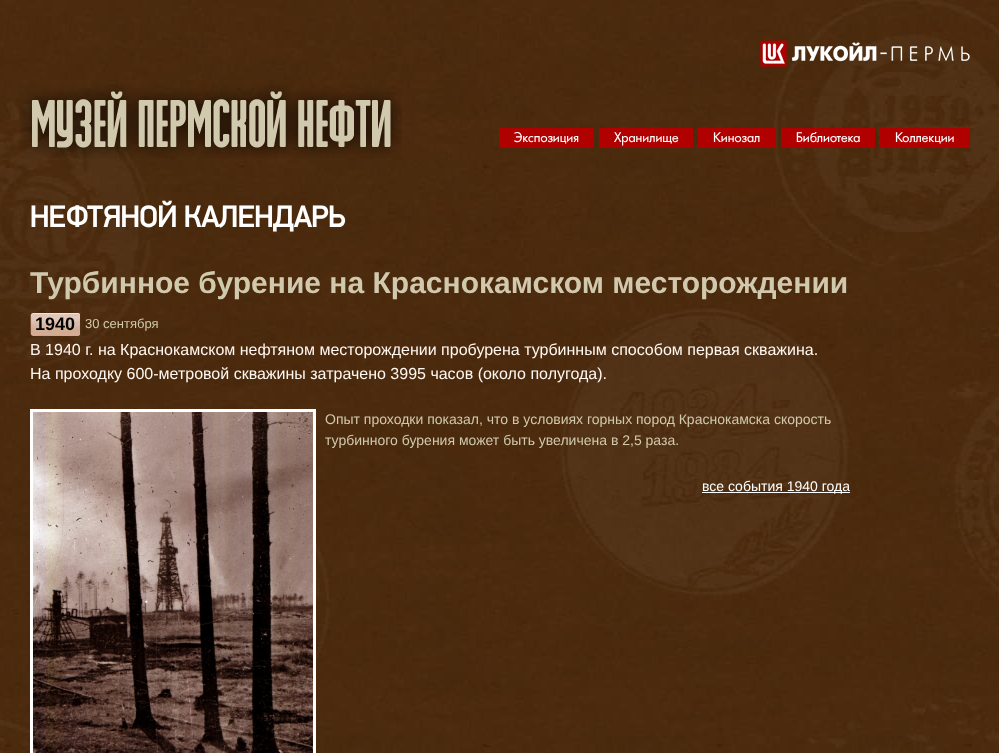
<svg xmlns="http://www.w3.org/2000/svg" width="999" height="753">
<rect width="100%" height="100%" fill="#fff"/>
<image x="0" y="0" width="999" height="753" href="media/1.png"/>
<image x="760" y="40" width="210" height="27" href="media/2.png"/>
<image x="20" y="84" width="382" height="74" href="media/3.png"/>
<rect x="499" y="128" width="95" height="20" fill="#b00000"/>
<text x="514" y="142" style="font-family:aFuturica;font-size:13px;fill:#fff">Экспозиция</text>
<rect x="599" y="128" width="94" height="20" fill="#b00000"/>
<text x="614" y="142" style="font-family:aFuturica;font-size:13px;fill:#fff">Хранилище</text>
<rect x="698" y="128" width="78" height="20" fill="#b00000"/>
<text x="713" y="142" style="font-family:aFuturica;font-size:13px;fill:#fff">Кинозал</text>
<rect x="781" y="128" width="94" height="20" fill="#b00000"/>
<text x="796" y="142" style="font-family:aFuturica;font-size:13px;fill:#fff">Библиотека</text>
<rect x="880" y="128" width="90" height="20" fill="#b00000"/>
<text x="895" y="142" style="font-family:aFuturica;font-size:13px;fill:#fff">Коллекции</text>
<text x="30" y="227" style="font-family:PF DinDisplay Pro;font-size:30px;font-weight:bold;fill:#fff">НЕФТЯНОЙ КАЛЕНДАРЬ</text>
<text x="30" y="293" style="font-family:Liberation Sans;font-size:30px;font-weight:bold;fill:#d1c9ad">Турбинное бурение на Краснокамском месторождении</text>
<image x="30" y="313" width="50" height="23" href="media/4.png"/>
<text x="35" y="330" style="font-family:Liberation Sans;font-size:18px;font-weight:bold;fill:#000">1940</text>
<text x="85" y="328" style="font-family:Liberation Sans;font-size:13px;fill:#d1c9ad">30 сентября</text>
<text x="30" y="355" style="font-family:Liberation Sans;font-size:16px;fill:#fff8f2">В 1940 г. на Краснокамском нефтяном месторождении пробурена турбинным способом первая скважина.</text>
<text x="30" y="379" style="font-family:Liberation Sans;font-size:16px;fill:#fff8f2">На проходку 600-метровой скважины затрачено 3995 часов (около полугода).</text>
<rect x="31.5" y="410.5" width="283" height="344" fill="none" stroke="#fff" stroke-width="3"/>
<image x="33" y="412" width="280" height="341" href="media/5.png"/>
<text x="325" y="424" style="font-family:Liberation Sans;font-size:14px;fill:#d1c9ad">Опыт проходки показал, что в условиях горных пород Краснокамска скорость</text>
<text x="325" y="445" style="font-family:Liberation Sans;font-size:14px;fill:#d1c9ad">турбинного бурения может быть увеличена в 2,5 раза.</text>
<rect x="702" y="492" width="148" height="1" fill="#fff"/>
<text x="702" y="491" style="font-family:Liberation Sans;font-size:14px;fill:#fff">все события 1940 года</text>
</svg>
